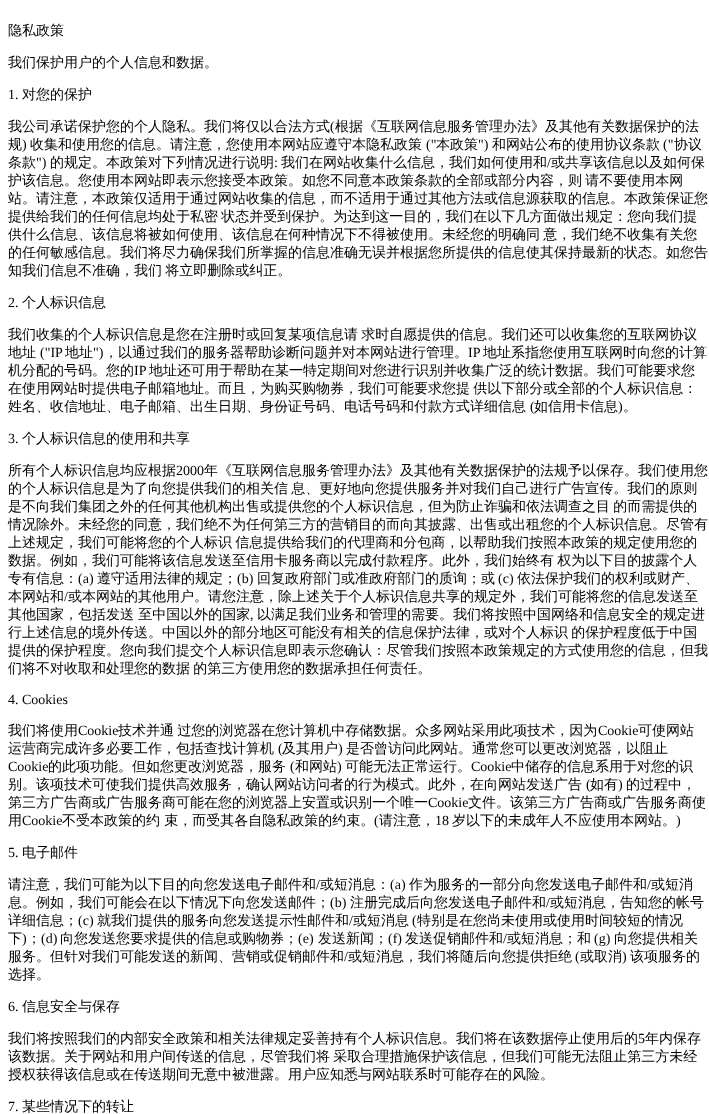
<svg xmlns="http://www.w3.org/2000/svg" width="709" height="1114">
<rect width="100%" height="100%" fill="#fff"/>
<text x="8" y="35" style="font-family:WenQuanYi Zen Hei;font-size:14px;font-weight:500;fill:#000">隐私政策</text>
<text x="8" y="67" style="font-family:WenQuanYi Zen Hei;font-size:14px;font-weight:500;fill:#000">我们保护用户的个人信息和数据。</text>
<text x="8" y="99" style="font-family:Liberation Serif;font-size:14px;fill:#000">1.</text>
<text x="22" y="99" style="font-family:WenQuanYi Zen Hei;font-size:14px;font-weight:500;fill:#000">对您的保护</text>
<text x="8" y="131" style="font-family:WenQuanYi Zen Hei;font-size:14px;font-weight:500;fill:#000">我公司承诺保护您的个人隐私。我们将仅以合法方式</text>
<text x="330" y="131" style="font-family:Liberation Serif;font-size:14px;fill:#000">(</text>
<text x="335" y="131" style="font-family:WenQuanYi Zen Hei;font-size:14px;font-weight:500;fill:#000">根据《互联网信息服务管理办法》及其他有关数据保护的法</text>
<text x="8" y="149" style="font-family:WenQuanYi Zen Hei;font-size:14px;font-weight:500;fill:#000">规</text>
<text x="22" y="149" style="font-family:Liberation Serif;font-size:14px;fill:#000">)</text>
<text x="30" y="149" style="font-family:WenQuanYi Zen Hei;font-size:14px;font-weight:500;fill:#000">收集和使用您的信息。请注意，您使用本网站应遵守本隐私政策</text>
<text x="426" y="149" style="font-family:Liberation Serif;font-size:14px;fill:#000">("</text>
<text x="436" y="149" style="font-family:WenQuanYi Zen Hei;font-size:14px;font-weight:500;fill:#000">本政策</text>
<text x="478" y="149" style="font-family:Liberation Serif;font-size:14px;fill:#000">")</text>
<text x="492" y="149" style="font-family:WenQuanYi Zen Hei;font-size:14px;font-weight:500;fill:#000">和网站公布的使用协议条款</text>
<text x="663" y="149" style="font-family:Liberation Serif;font-size:14px;fill:#000">("</text>
<text x="674" y="149" style="font-family:WenQuanYi Zen Hei;font-size:14px;font-weight:500;fill:#000">协议</text>
<text x="8" y="167" style="font-family:WenQuanYi Zen Hei;font-size:14px;font-weight:500;fill:#000">条款</text>
<text x="36" y="167" style="font-family:Liberation Serif;font-size:14px;fill:#000">")</text>
<text x="50" y="167" style="font-family:WenQuanYi Zen Hei;font-size:14px;font-weight:500;fill:#000">的规定。本政策对下列情况进行说明</text>
<text x="274" y="167" style="font-family:Liberation Serif;font-size:14px;fill:#000">:</text>
<text x="281" y="167" style="font-family:WenQuanYi Zen Hei;font-size:14px;font-weight:500;fill:#000">我们在网站收集什么信息，我们如何使用和</text>
<text x="547" y="167" style="font-family:Liberation Serif;font-size:14px;fill:#000">/</text>
<text x="551" y="167" style="font-family:WenQuanYi Zen Hei;font-size:14px;font-weight:500;fill:#000">或共享该信息以及如何保</text>
<text x="8" y="185" word-spacing="-1" style="font-family:WenQuanYi Zen Hei;font-size:14px;font-weight:500;fill:#000">护该信息。您使用本网站即表示您接受本政策。如您不同意本政策条款的全部或部分内容，则 请不要使用本网</text>
<text x="8" y="203" style="font-family:WenQuanYi Zen Hei;font-size:14px;font-weight:500;fill:#000">站。请注意，本政策仅适用于通过网站收集的信息，而不适用于通过其他方法或信息源获取的信息。本政策保证您</text>
<text x="8" y="221" word-spacing="-1" style="font-family:WenQuanYi Zen Hei;font-size:14px;font-weight:500;fill:#000">提供给我们的任何信息均处于私密 状态并受到保护。为达到这一目的，我们在以下几方面做出规定：您向我们提</text>
<text x="8" y="239" word-spacing="-1" style="font-family:WenQuanYi Zen Hei;font-size:14px;font-weight:500;fill:#000">供什么信息、该信息将被如何使用、该信息在何种情况下不得被使用。未经您的明确同 意，我们绝不收集有关您</text>
<text x="8" y="257" style="font-family:WenQuanYi Zen Hei;font-size:14px;font-weight:500;fill:#000">的任何敏感信息。我们将尽力确保我们所掌握的信息准确无误并根据您所提供的信息使其保持最新的状态。如您告</text>
<text x="8" y="275" word-spacing="-1" style="font-family:WenQuanYi Zen Hei;font-size:14px;font-weight:500;fill:#000">知我们信息不准确，我们 将立即删除或纠正。</text>
<text x="8" y="307" style="font-family:Liberation Serif;font-size:14px;fill:#000">2.</text>
<text x="22" y="307" style="font-family:WenQuanYi Zen Hei;font-size:14px;font-weight:500;fill:#000">个人标识信息</text>
<text x="8" y="339" word-spacing="-1" style="font-family:WenQuanYi Zen Hei;font-size:14px;font-weight:500;fill:#000">我们收集的个人标识信息是您在注册时或回复某项信息请 求时自愿提供的信息。我们还可以收集您的互联网协议</text>
<text x="8" y="357" style="font-family:WenQuanYi Zen Hei;font-size:14px;font-weight:500;fill:#000">地址</text>
<text x="40" y="357" style="font-family:Liberation Serif;font-size:14px;fill:#000">("IP</text>
<text x="65" y="357" style="font-family:WenQuanYi Zen Hei;font-size:14px;font-weight:500;fill:#000">地址</text>
<text x="93" y="357" style="font-family:Liberation Serif;font-size:14px;fill:#000">")</text>
<text x="104" y="357" style="font-family:WenQuanYi Zen Hei;font-size:14px;font-weight:500;fill:#000">，以通过我们的服务器帮助诊断问题并对本网站进行管理。</text>
<text x="468" y="357" style="font-family:Liberation Serif;font-size:14px;fill:#000">IP</text>
<text x="483" y="357" style="font-family:WenQuanYi Zen Hei;font-size:14px;font-weight:500;fill:#000">地址系指您使用互联网时向您的计算</text>
<text x="8" y="375" style="font-family:WenQuanYi Zen Hei;font-size:14px;font-weight:500;fill:#000">机分配的号码。您的</text>
<text x="134" y="375" style="font-family:Liberation Serif;font-size:14px;fill:#000">IP</text>
<text x="149" y="375" style="font-family:WenQuanYi Zen Hei;font-size:14px;font-weight:500;fill:#000">地址还可用于帮助在某一特定期间对您进行识别并收集广泛的统计数据。我们可能要求您</text>
<text x="8" y="393" word-spacing="-1" style="font-family:WenQuanYi Zen Hei;font-size:14px;font-weight:500;fill:#000">在使用网站时提供电子邮箱地址。而且，为购买购物券，我们可能要求您提 供以下部分或全部的个人标识信息：</text>
<text x="8" y="411" style="font-family:WenQuanYi Zen Hei;font-size:14px;font-weight:500;fill:#000">姓名、收信地址、电子邮箱、出生日期、身份证号码、电话号码和付款方式详细信息</text>
<text x="530" y="411" style="font-family:Liberation Serif;font-size:14px;fill:#000">(</text>
<text x="534" y="411" style="font-family:WenQuanYi Zen Hei;font-size:14px;font-weight:500;fill:#000">如信用卡信息</text>
<text x="618" y="411" style="font-family:Liberation Serif;font-size:14px;fill:#000">)</text>
<text x="623" y="411" style="font-family:WenQuanYi Zen Hei;font-size:14px;font-weight:500;fill:#000">。</text>
<text x="8" y="443" style="font-family:Liberation Serif;font-size:14px;fill:#000">3.</text>
<text x="22" y="443" style="font-family:WenQuanYi Zen Hei;font-size:14px;font-weight:500;fill:#000">个人标识信息的使用和共享</text>
<text x="8" y="475" style="font-family:WenQuanYi Zen Hei;font-size:14px;font-weight:500;fill:#000">所有个人标识信息均应根据</text>
<text x="176" y="475" style="font-family:Liberation Serif;font-size:14px;fill:#000">2000</text>
<text x="204" y="475" style="font-family:WenQuanYi Zen Hei;font-size:14px;font-weight:500;fill:#000">年《互联网信息服务管理办法》及其他有关数据保护的法规予以保存。我们使用您</text>
<text x="8" y="493" word-spacing="-1" style="font-family:WenQuanYi Zen Hei;font-size:14px;font-weight:500;fill:#000">的个人标识信息是为了向您提供我们的相关信 息、更好地向您提供服务并对我们自己进行广告宣传。我们的原则</text>
<text x="8" y="511" word-spacing="-1" style="font-family:WenQuanYi Zen Hei;font-size:14px;font-weight:500;fill:#000">是不向我们集团之外的任何其他机构出售或提供您的个人标识信息，但为防止诈骗和依法调查之目 的而需提供的</text>
<text x="8" y="529" style="font-family:WenQuanYi Zen Hei;font-size:14px;font-weight:500;fill:#000">情况除外。未经您的同意，我们绝不为任何第三方的营销目的而向其披露、出售或出租您的个人标识信息。尽管有</text>
<text x="8" y="547" word-spacing="-1" style="font-family:WenQuanYi Zen Hei;font-size:14px;font-weight:500;fill:#000">上述规定，我们可能将您的个人标识 信息提供给我们的代理商和分包商，以帮助我们按照本政策的规定使用您的</text>
<text x="8" y="565" word-spacing="-1" style="font-family:WenQuanYi Zen Hei;font-size:14px;font-weight:500;fill:#000">数据。例如，我们可能将该信息发送至信用卡服务商以完成付款程序。此外，我们始终有 权为以下目的披露个人</text>
<text x="8" y="583" style="font-family:WenQuanYi Zen Hei;font-size:14px;font-weight:500;fill:#000">专有信息：</text>
<text x="78" y="583" style="font-family:Liberation Serif;font-size:14px;fill:#000">(a)</text>
<text x="97" y="583" style="font-family:WenQuanYi Zen Hei;font-size:14px;font-weight:500;fill:#000">遵守适用法律的规定；</text>
<text x="237" y="583" style="font-family:Liberation Serif;font-size:14px;fill:#000">(b)</text>
<text x="257" y="583" style="font-family:WenQuanYi Zen Hei;font-size:14px;font-weight:500;fill:#000">回复政府部门或准政府部门的质询；或</text>
<text x="498" y="583" style="font-family:Liberation Serif;font-size:14px;fill:#000">(c)</text>
<text x="517" y="583" style="font-family:WenQuanYi Zen Hei;font-size:14px;font-weight:500;fill:#000">依法保护我们的权利或财产、</text>
<text x="8" y="601" style="font-family:WenQuanYi Zen Hei;font-size:14px;font-weight:500;fill:#000">本网站和</text>
<text x="64" y="601" style="font-family:Liberation Serif;font-size:14px;fill:#000">/</text>
<text x="68" y="601" style="font-family:WenQuanYi Zen Hei;font-size:14px;font-weight:500;fill:#000">或本网站的其他用户。请您注意，除上述关于个人标识信息共享的规定外，我们可能将您的信息发送至</text>
<text x="8" y="619" style="font-family:WenQuanYi Zen Hei;font-size:14px;font-weight:500;fill:#000">其他国家，包括发送 至中国以外的国家</text>
<text x="250" y="619" style="font-family:Liberation Serif;font-size:14px;fill:#000">,</text>
<text x="257" y="619" style="font-family:WenQuanYi Zen Hei;font-size:14px;font-weight:500;fill:#000">以满足我们业务和管理的需要。我们将按照中国网络和信息安全的规定进</text>
<text x="8" y="637" word-spacing="-1" style="font-family:WenQuanYi Zen Hei;font-size:14px;font-weight:500;fill:#000">行上述信息的境外传送。中国以外的部分地区可能没有相关的信息保护法律，或对个人标识 的保护程度低于中国</text>
<text x="8" y="655" style="font-family:WenQuanYi Zen Hei;font-size:14px;font-weight:500;fill:#000">提供的保护程度。您向我们提交个人标识信息即表示您确认：尽管我们按照本政策规定的方式使用您的信息，但我</text>
<text x="8" y="673" word-spacing="-1" style="font-family:WenQuanYi Zen Hei;font-size:14px;font-weight:500;fill:#000">们将不对收取和处理您的数据 的第三方使用您的数据承担任何责任。</text>
<text x="8" y="704" style="font-family:Liberation Serif;font-size:14px;fill:#000">4. Cookies</text>
<text x="8" y="735" style="font-family:WenQuanYi Zen Hei;font-size:14px;font-weight:500;fill:#000">我们将使用</text>
<text x="78" y="735" style="font-family:Liberation Serif;font-size:14px;fill:#000">Cookie</text>
<text x="118" y="735" word-spacing="-1" style="font-family:WenQuanYi Zen Hei;font-size:14px;font-weight:500;fill:#000">技术并通 过您的浏览器在您计算机中存储数据。众多网站采用此项技术，因为</text>
<text x="598" y="735" style="font-family:Liberation Serif;font-size:14px;fill:#000">Cookie</text>
<text x="638" y="735" style="font-family:WenQuanYi Zen Hei;font-size:14px;font-weight:500;fill:#000">可使网站</text>
<text x="8" y="753" style="font-family:WenQuanYi Zen Hei;font-size:14px;font-weight:500;fill:#000">运营商完成许多必要工作，包括查找计算机</text>
<text x="278" y="753" style="font-family:Liberation Serif;font-size:14px;fill:#000">(</text>
<text x="282" y="753" style="font-family:WenQuanYi Zen Hei;font-size:14px;font-weight:500;fill:#000">及其用户</text>
<text x="338" y="753" style="font-family:Liberation Serif;font-size:14px;fill:#000">)</text>
<text x="346" y="753" style="font-family:WenQuanYi Zen Hei;font-size:14px;font-weight:500;fill:#000">是否曾访问此网站。通常您可以更改浏览器，以阻止</text>
<text x="8" y="771" style="font-family:Liberation Serif;font-size:14px;fill:#000">Cookie</text>
<text x="48" y="771" style="font-family:WenQuanYi Zen Hei;font-size:14px;font-weight:500;fill:#000">的此项功能。但如您更改浏览器，服务</text>
<text x="290" y="771" style="font-family:Liberation Serif;font-size:14px;fill:#000">(</text>
<text x="295" y="771" style="font-family:WenQuanYi Zen Hei;font-size:14px;font-weight:500;fill:#000">和网站</text>
<text x="337" y="771" style="font-family:Liberation Serif;font-size:14px;fill:#000">)</text>
<text x="345" y="771" style="font-family:WenQuanYi Zen Hei;font-size:14px;font-weight:500;fill:#000">可能无法正常运行。</text>
<text x="471" y="771" style="font-family:Liberation Serif;font-size:14px;fill:#000">Cookie</text>
<text x="511" y="771" style="font-family:WenQuanYi Zen Hei;font-size:14px;font-weight:500;fill:#000">中储存的信息系用于对您的识</text>
<text x="8" y="789" style="font-family:WenQuanYi Zen Hei;font-size:14px;font-weight:500;fill:#000">别。该项技术可使我们提供高效服务，确认网站访问者的行为模式。此外，在向网站发送广告</text>
<text x="586" y="789" style="font-family:Liberation Serif;font-size:14px;fill:#000">(</text>
<text x="590" y="789" style="font-family:WenQuanYi Zen Hei;font-size:14px;font-weight:500;fill:#000">如有</text>
<text x="618" y="789" style="font-family:Liberation Serif;font-size:14px;fill:#000">)</text>
<text x="626" y="789" style="font-family:WenQuanYi Zen Hei;font-size:14px;font-weight:500;fill:#000">的过程中，</text>
<text x="8" y="807" style="font-family:WenQuanYi Zen Hei;font-size:14px;font-weight:500;fill:#000">第三方广告商或广告服务商可能在您的浏览器上安置或识别一个唯一</text>
<text x="428" y="807" style="font-family:Liberation Serif;font-size:14px;fill:#000">Cookie</text>
<text x="468" y="807" style="font-family:WenQuanYi Zen Hei;font-size:14px;font-weight:500;fill:#000">文件。该第三方广告商或广告服务商使</text>
<text x="8" y="825" style="font-family:WenQuanYi Zen Hei;font-size:14px;font-weight:500;fill:#000">用</text>
<text x="22" y="825" style="font-family:Liberation Serif;font-size:14px;fill:#000">Cookie</text>
<text x="62" y="825" style="font-family:WenQuanYi Zen Hei;font-size:14px;font-weight:500;fill:#000">不受本政策的约 束，而受其各自隐私政策的约束。</text>
<text x="374" y="825" style="font-family:Liberation Serif;font-size:14px;fill:#000">(</text>
<text x="379" y="825" style="font-family:WenQuanYi Zen Hei;font-size:14px;font-weight:500;fill:#000">请注意，</text>
<text x="435" y="825" style="font-family:Liberation Serif;font-size:14px;fill:#000">18</text>
<text x="452" y="825" style="font-family:WenQuanYi Zen Hei;font-size:14px;font-weight:500;fill:#000">岁以下的未成年人不应使用本网站。</text>
<text x="676" y="825" style="font-family:Liberation Serif;font-size:14px;fill:#000">)</text>
<text x="8" y="857" style="font-family:Liberation Serif;font-size:14px;fill:#000">5.</text>
<text x="22" y="857" style="font-family:WenQuanYi Zen Hei;font-size:14px;font-weight:500;fill:#000">电子邮件</text>
<text x="8" y="889" style="font-family:WenQuanYi Zen Hei;font-size:14px;font-weight:500;fill:#000">请注意，我们可能为以下目的向您发送电子邮件和</text>
<text x="316" y="889" style="font-family:Liberation Serif;font-size:14px;fill:#000">/</text>
<text x="320" y="889" style="font-family:WenQuanYi Zen Hei;font-size:14px;font-weight:500;fill:#000">或短消息：</text>
<text x="390" y="889" style="font-family:Liberation Serif;font-size:14px;fill:#000">(a)</text>
<text x="409" y="889" style="font-family:WenQuanYi Zen Hei;font-size:14px;font-weight:500;fill:#000">作为服务的一部分向您发送电子邮件和</text>
<text x="647" y="889" style="font-family:Liberation Serif;font-size:14px;fill:#000">/</text>
<text x="651" y="889" style="font-family:WenQuanYi Zen Hei;font-size:14px;font-weight:500;fill:#000">或短消</text>
<text x="8" y="907" style="font-family:WenQuanYi Zen Hei;font-size:14px;font-weight:500;fill:#000">息。例如，我们可能会在以下情况下向您发送邮件；</text>
<text x="330" y="907" style="font-family:Liberation Serif;font-size:14px;fill:#000">(b)</text>
<text x="350" y="907" style="font-family:WenQuanYi Zen Hei;font-size:14px;font-weight:500;fill:#000">注册完成后向您发送电子邮件和</text>
<text x="546" y="907" style="font-family:Liberation Serif;font-size:14px;fill:#000">/</text>
<text x="550" y="907" style="font-family:WenQuanYi Zen Hei;font-size:14px;font-weight:500;fill:#000">或短消息，告知您的帐号</text>
<text x="8" y="925" style="font-family:WenQuanYi Zen Hei;font-size:14px;font-weight:500;fill:#000">详细信息；</text>
<text x="78" y="925" style="font-family:Liberation Serif;font-size:14px;fill:#000">(c)</text>
<text x="97" y="925" style="font-family:WenQuanYi Zen Hei;font-size:14px;font-weight:500;fill:#000">就我们提供的服务向您发送提示性邮件和</text>
<text x="349" y="925" style="font-family:Liberation Serif;font-size:14px;fill:#000">/</text>
<text x="353" y="925" style="font-family:WenQuanYi Zen Hei;font-size:14px;font-weight:500;fill:#000">或短消息</text>
<text x="412" y="925" style="font-family:Liberation Serif;font-size:14px;fill:#000">(</text>
<text x="417" y="925" style="font-family:WenQuanYi Zen Hei;font-size:14px;font-weight:500;fill:#000">特别是在您尚未使用或使用时间较短的情况</text>
<text x="8" y="943" style="font-family:WenQuanYi Zen Hei;font-size:14px;font-weight:500;fill:#000">下</text>
<text x="22" y="943" style="font-family:Liberation Serif;font-size:14px;fill:#000">)</text>
<text x="27" y="943" style="font-family:WenQuanYi Zen Hei;font-size:14px;font-weight:500;fill:#000">；</text>
<text x="41" y="943" style="font-family:Liberation Serif;font-size:14px;fill:#000">(d)</text>
<text x="60" y="943" style="font-family:WenQuanYi Zen Hei;font-size:14px;font-weight:500;fill:#000">向您发送您要求提供的信息或购物券；</text>
<text x="298" y="943" style="font-family:Liberation Serif;font-size:14px;fill:#000">(e)</text>
<text x="318" y="943" style="font-family:WenQuanYi Zen Hei;font-size:14px;font-weight:500;fill:#000">发送新闻；</text>
<text x="388" y="943" style="font-family:Liberation Serif;font-size:14px;fill:#000">(f)</text>
<text x="405" y="943" style="font-family:WenQuanYi Zen Hei;font-size:14px;font-weight:500;fill:#000">发送促销邮件和</text>
<text x="503" y="943" style="font-family:Liberation Serif;font-size:14px;fill:#000">/</text>
<text x="507" y="943" style="font-family:WenQuanYi Zen Hei;font-size:14px;font-weight:500;fill:#000">或短消息；和</text>
<text x="594" y="943" style="font-family:Liberation Serif;font-size:14px;fill:#000">(g)</text>
<text x="614" y="943" style="font-family:WenQuanYi Zen Hei;font-size:14px;font-weight:500;fill:#000">向您提供相关</text>
<text x="8" y="961" style="font-family:WenQuanYi Zen Hei;font-size:14px;font-weight:500;fill:#000">服务。但针对我们可能发送的新闻、营销或促销邮件和</text>
<text x="344" y="961" style="font-family:Liberation Serif;font-size:14px;fill:#000">/</text>
<text x="348" y="961" style="font-family:WenQuanYi Zen Hei;font-size:14px;font-weight:500;fill:#000">或短消息，我们将随后向您提供拒绝</text>
<text x="575" y="961" style="font-family:Liberation Serif;font-size:14px;fill:#000">(</text>
<text x="580" y="961" style="font-family:WenQuanYi Zen Hei;font-size:14px;font-weight:500;fill:#000">或取消</text>
<text x="622" y="961" style="font-family:Liberation Serif;font-size:14px;fill:#000">)</text>
<text x="630" y="961" style="font-family:WenQuanYi Zen Hei;font-size:14px;font-weight:500;fill:#000">该项服务的</text>
<text x="8" y="979" style="font-family:WenQuanYi Zen Hei;font-size:14px;font-weight:500;fill:#000">选择。</text>
<text x="8" y="1011" style="font-family:Liberation Serif;font-size:14px;fill:#000">6.</text>
<text x="22" y="1011" style="font-family:WenQuanYi Zen Hei;font-size:14px;font-weight:500;fill:#000">信息安全与保存</text>
<text x="8" y="1043" style="font-family:WenQuanYi Zen Hei;font-size:14px;font-weight:500;fill:#000">我们将按照我们的内部安全政策和相关法律规定妥善持有个人标识信息。我们将在该数据停止使用后的</text>
<text x="638" y="1043" style="font-family:Liberation Serif;font-size:14px;fill:#000">5</text>
<text x="645" y="1043" style="font-family:WenQuanYi Zen Hei;font-size:14px;font-weight:500;fill:#000">年内保存</text>
<text x="8" y="1061" word-spacing="-1" style="font-family:WenQuanYi Zen Hei;font-size:14px;font-weight:500;fill:#000">该数据。关于网站和用户间传送的信息，尽管我们将 采取合理措施保护该信息，但我们可能无法阻止第三方未经</text>
<text x="8" y="1079" style="font-family:WenQuanYi Zen Hei;font-size:14px;font-weight:500;fill:#000">授权获得该信息或在传送期间无意中被泄露。用户应知悉与网站联系时可能存在的风险。</text>
<text x="8" y="1111" style="font-family:Liberation Serif;font-size:14px;fill:#000">7.</text>
<text x="22" y="1111" style="font-family:WenQuanYi Zen Hei;font-size:14px;font-weight:500;fill:#000">某些情况下的转让</text>
</svg>
